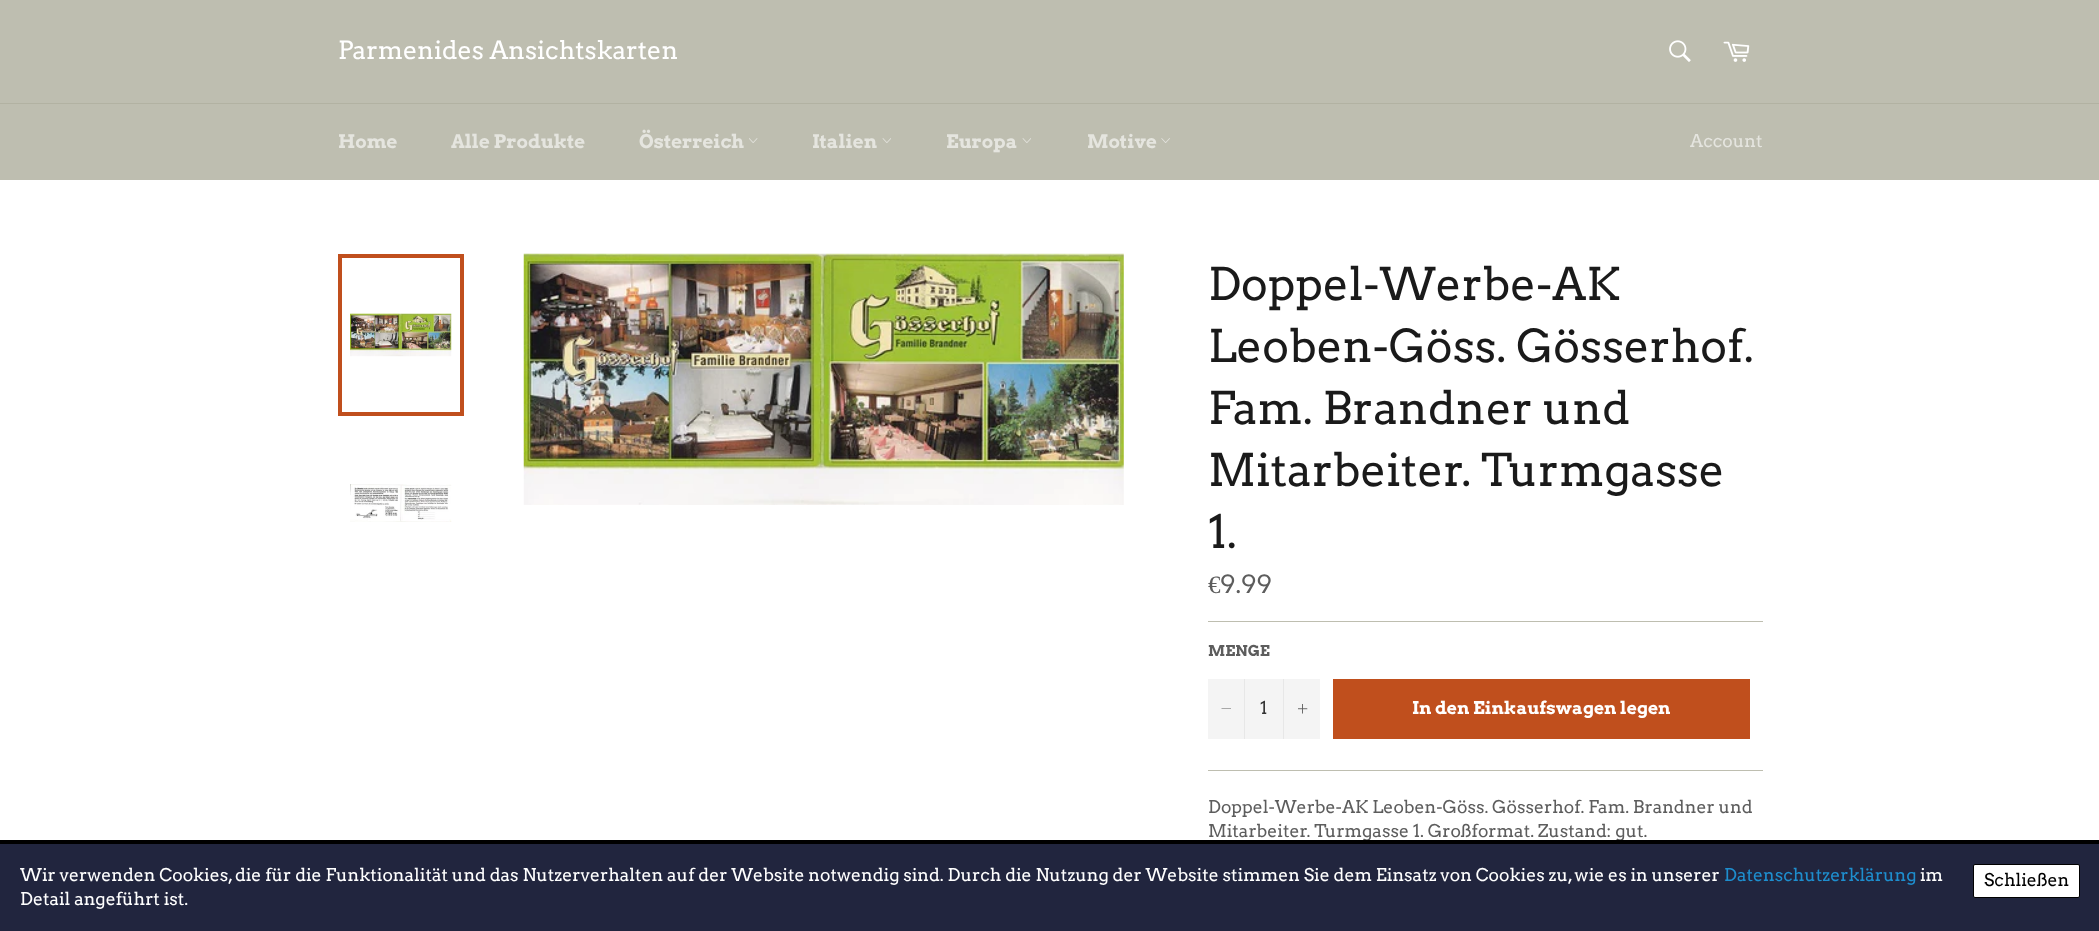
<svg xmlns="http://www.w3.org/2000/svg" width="2099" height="931">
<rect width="100%" height="100%" fill="#bebeb0"/>
<text x="338" y="59" style="font-family:Arvo;font-size:25px;fill:#fff">Parmenides Ansichtskarten</text>
<image x="1669" y="40" width="22" height="22" href="media/1.png"/>
<image x="1723" y="41" width="27" height="21" href="media/2.png"/>
<rect y="103" width="2099" height="1" fill="#b2b2a2"/>
<text x="338" y="148" style="font-family:Arvo;font-size:18.75px;font-weight:bold;fill:#e5e5df">Home</text>
<text x="451" y="148" style="font-family:Arvo;font-size:18.75px;font-weight:bold;fill:#e5e5df">Alle Produkte</text>
<text x="639" y="148" style="font-family:Arvo;font-size:18.75px;font-weight:bold;fill:#e5e5df">Österreich</text>
<image x="749" y="138" width="9" height="5" href="media/3.png"/>
<text x="812" y="148" style="font-family:Arvo;font-size:18.75px;font-weight:bold;fill:#e5e5df">Italien</text>
<image x="882" y="138" width="9" height="5" href="media/4.png"/>
<text x="946" y="148" style="font-family:Arvo;font-size:18.75px;font-weight:bold;fill:#e5e5df">Europa</text>
<image x="1022" y="138" width="9" height="5" href="media/4.png"/>
<text x="1087" y="148" style="font-family:Arvo;font-size:18.75px;font-weight:bold;fill:#e5e5df">Motive</text>
<image x="1161" y="138" width="9" height="5" href="media/5.png"/>
<text x="1690" y="147" style="font-family:Arvo;font-size:17.5px;fill:#e5e5df">Account</text>
<rect y="180" width="2099" height="660" fill="#fff"/>
<image x="350" y="313" width="102" height="44" href="media/6.png"/>
<rect x="340" y="256" width="122" height="158" fill="none" stroke="#c04f1d" stroke-width="4"/>
<image x="350" y="484" width="102" height="38" href="media/7.png"/>
<image x="523" y="253" width="601" height="252" href="media/8.png"/>
<text x="1208" y="300" style="font-family:Arvo;font-size:45px;fill:#1a1a1a">Doppel-Werbe-AK</text>
<text x="1208" y="362" style="font-family:Arvo;font-size:45px;fill:#1a1a1a">Leoben-Göss. Gösserhof.</text>
<text x="1208" y="424" style="font-family:Arvo;font-size:45px;fill:#1a1a1a">Fam. Brandner und</text>
<text x="1208" y="486" style="font-family:Arvo;font-size:45px;fill:#1a1a1a">Mitarbeiter. Turmgasse</text>
<text x="1208" y="548" style="font-family:Arvo;font-size:45px;fill:#1a1a1a">1.</text>
<text x="1208" y="593" style="font-family:Liberation Serif;font-size:25px;fill:#5d5d5d">€</text>
<text x="1220" y="593" style="font-family:Arvo;font-size:25px;fill:#5d5d5d">9.99</text>
<rect x="1208" y="621" width="555" height="1" fill="#bebeb0"/>
<text x="1208" y="656" style="font-family:Arvo;font-size:15px;font-weight:bold;fill:#5d5d5d">MENGE</text>
<rect x="1208" y="679" width="112" height="60" fill="#f4f4f4"/>
<rect x="1244" y="679" width="1" height="60" fill="#e7e7e7"/>
<path d="M1231 708.5v.5h-9.5v-.5z" fill="#5d5d5d" fill-rule="evenodd"/>
<text x="1260" y="714" style="font-family:Arvo;font-size:17.5px;fill:#333">1</text>
<rect x="1283" y="679" width="1" height="60" fill="#e7e7e7"/>
<image x="1298" y="704" width="10" height="10" href="media/9.png"/>
<rect x="1333" y="679" width="417" height="60" fill="#c04f1d"/>
<text x="1412" y="714" style="font-family:Arvo;font-size:17.5px;font-weight:bold;fill:#fff">In den Einkaufswagen legen</text>
<rect x="1208" y="770" width="555" height="1" fill="#bebeb0"/>
<text x="1208" y="813" style="font-family:Arvo;font-size:17.5px;fill:#5d5d5d">Doppel-Werbe-AK Leoben-Göss. Gösserhof. Fam. Brandner und</text>
<text x="1208" y="837" style="font-family:Arvo;font-size:17.5px;fill:#5d5d5d">Mitarbeiter. Turmgasse 1. Großformat. Zustand: gut.</text>
<rect y="844" width="2099" height="87" fill="#21253e"/>
<rect y="840" width="2099" height="4" fill="#000"/>
<text x="20" y="881" style="font-family:Arvo;font-size:17.5px;fill:#fff">Wir verwenden Cookies, die für die Funktionalität und das Nutzerverhalten auf der Website notwendig sind. Durch die Nutzung der Website stimmen Sie dem Einsatz von Cookies zu, wie es in unserer</text>
<text x="1724" y="881" style="font-family:Arvo;font-size:17.5px;fill:#1e8ece">Datenschutzerklärung</text>
<text x="1920" y="881" style="font-family:Arvo;font-size:17.5px;fill:#fff">im</text>
<text x="20" y="905" style="font-family:Arvo;font-size:17.5px;fill:#fff">Detail angeführt ist.</text>
<rect x="1973.5" y="864.5" width="106" height="33" rx="1.5" fill="#fff" stroke="#000"/>
<text x="1984" y="886" style="font-family:Arvo;font-size:17.5px;fill:#000">Schließen</text>
</svg>
